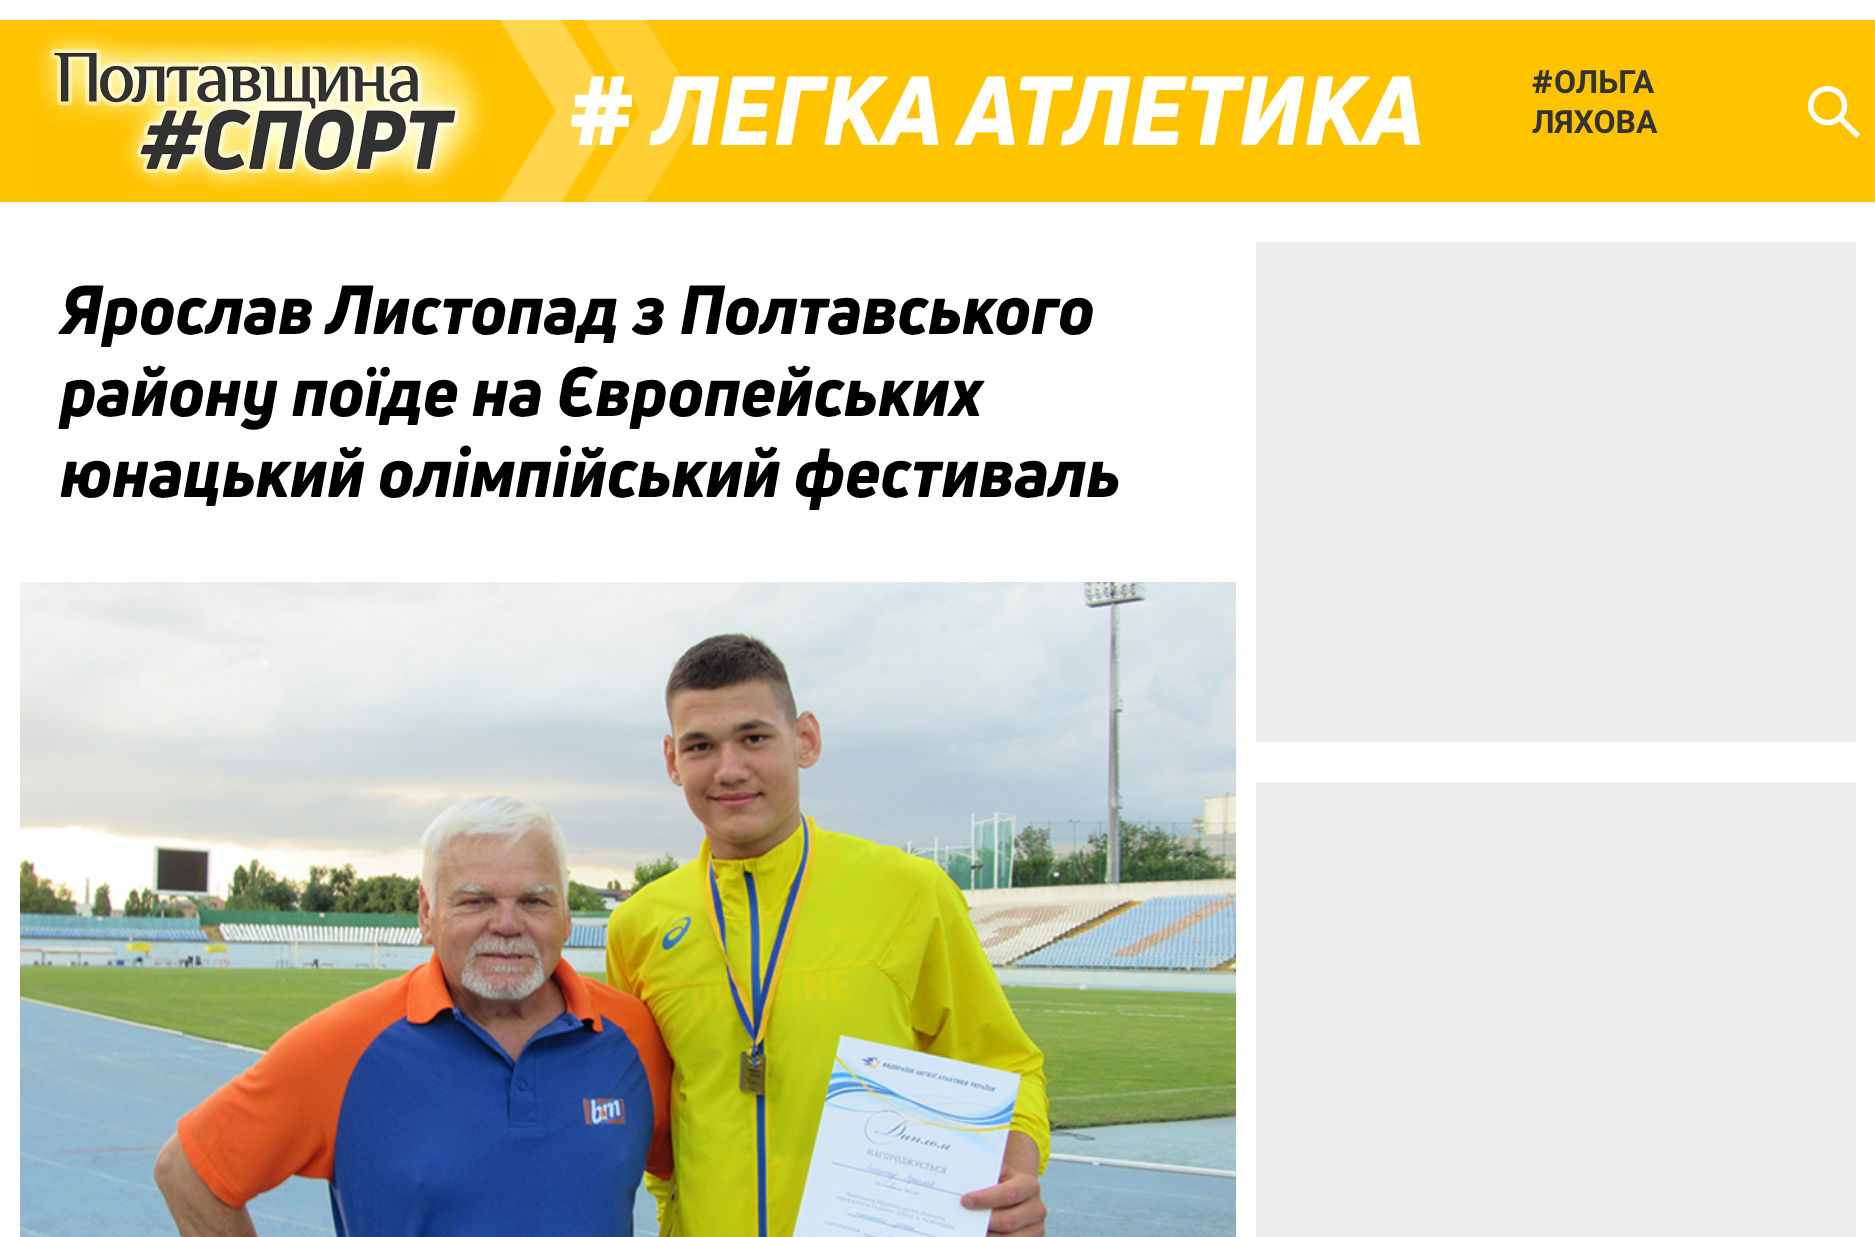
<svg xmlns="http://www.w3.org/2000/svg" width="1875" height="1237">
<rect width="100%" height="100%" fill="#fff"/>
<rect y="20" width="1875" height="182" fill="#ffc300"/>
<image x="498" y="20" width="204" height="182" href="media/1.png"/>
<image x="34" y="29" width="456" height="165" href="media/2.png"/>
<text x="570" y="145" style="font-family:Noto Sans;font-size:96px;font-weight:900;fill:#fff">#</text>
<text x="652" y="145" style="font-family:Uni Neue;font-size:96px;font-weight:800;font-style:italic;fill:#fff">ЛЕГКА АТЛЕТИКА</text>
<text x="1532" y="93" style="font-family:Noto Sans;font-size:32px;font-weight:bold;fill:#333">#</text>
<text x="1554" y="93" style="font-family:Roboto;font-size:32px;font-weight:bold;fill:#333">ОЛЬГА</text>
<text x="1532" y="133" style="font-family:Roboto;font-size:32px;font-weight:bold;fill:#333">ЛЯХОВА</text>
<image x="1808" y="86" width="52" height="52" href="media/3.png"/>
<text x="60" y="334" style="font-family:Uni Neue;font-size:68px;font-weight:800;font-style:italic;fill:#000">Ярослав Листопад з Полтавського</text>
<text x="60" y="416" style="font-family:Uni Neue;font-size:68px;font-weight:800;font-style:italic;fill:#000">району поїде на Європейських</text>
<text x="60" y="497" style="font-family:Uni Neue;font-size:68px;font-weight:800;font-style:italic;fill:#000">юнацький олімпійський фестиваль</text>
<image x="20" y="582" width="1216" height="655" href="media/4.png"/>
<rect x="1256" y="242" width="600" height="500" fill="#eee"/>
<rect x="1256" y="782" width="600" height="455" fill="#eee"/>
</svg>
